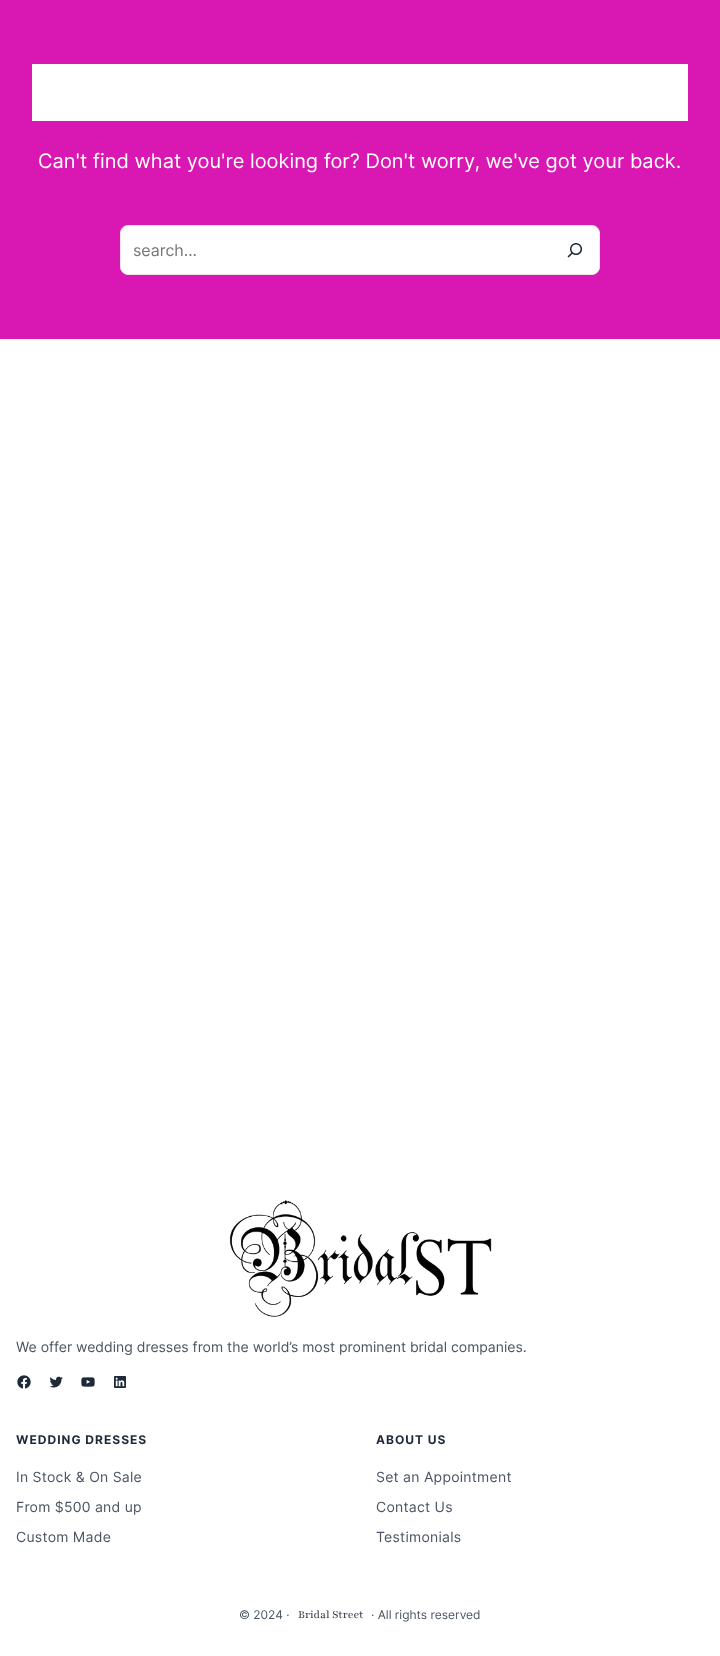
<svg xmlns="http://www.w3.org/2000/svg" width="720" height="1656">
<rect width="100%" height="100%" fill="#fff"/>
<rect width="720" height="339" fill="#d917b3"/>
<rect x="32" y="64" width="656" height="57" fill="#fff"/>
<text x="38" y="168" style="font-family:Inter;font-size:20px;fill:#fff">Can't find what you're looking for? Don't worry, we've got your back.</text>
<rect x="120.5" y="225.5" width="479" height="49" rx="7.5" fill="#fff" stroke="#f1e4ea"/>
<text x="133" y="256" style="font-family:Inter;font-size:16px;fill:#757575">search...</text>
<image x="567" y="243" width="16" height="15" href="media/1.png"/>
<image x="229" y="1200" width="263" height="117" href="media/2.png"/>
<text x="16" y="1352" style="font-family:Inter;font-size:14px;fill:#4b5563">We offer wedding dresses from the world’s most prominent bridal companies.</text>
<image x="17" y="1375" width="14" height="14" href="media/3.png"/>
<image x="49" y="1376" width="14" height="12" href="media/4.png"/>
<image x="81" y="1377" width="14" height="10" href="media/5.png"/>
<image x="114" y="1376" width="12" height="12" href="media/6.png"/>
<text x="16" y="1444" style="font-family:Inter;font-size:12px;font-weight:bold;letter-spacing:1px;fill:#1f2937">WEDDING DRESSES</text>
<text x="16" y="1482" style="font-family:Inter;font-size:14px;letter-spacing:0.25px;fill:#4b5563">In Stock &amp; On Sale</text>
<text x="16" y="1512" style="font-family:Inter;font-size:14px;letter-spacing:0.25px;fill:#4b5563">From $500 and up</text>
<text x="16" y="1542" style="font-family:Inter;font-size:14px;letter-spacing:0.25px;fill:#4b5563">Custom Made</text>
<text x="376" y="1444" style="font-family:Inter;font-size:12px;font-weight:bold;letter-spacing:1px;fill:#1f2937">ABOUT US</text>
<text x="376" y="1482" style="font-family:Inter;font-size:14px;letter-spacing:0.25px;fill:#4b5563">Set an Appointment</text>
<text x="376" y="1512" style="font-family:Inter;font-size:14px;letter-spacing:0.25px;fill:#4b5563">Contact Us</text>
<text x="376" y="1542" style="font-family:Inter;font-size:14px;letter-spacing:0.25px;fill:#4b5563">Testimonials</text>
<text x="239" y="1619" style="font-family:Inter;font-size:12px;fill:#4b5563">© 2024 ·</text>
<text x="298" y="1618" style="font-family:'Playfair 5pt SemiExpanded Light';font-size:12px;fill:#1f2937">Bridal Street</text>
<text x="371" y="1619" style="font-family:Inter;font-size:12px;fill:#4b5563">· All rights reserved</text>
</svg>
